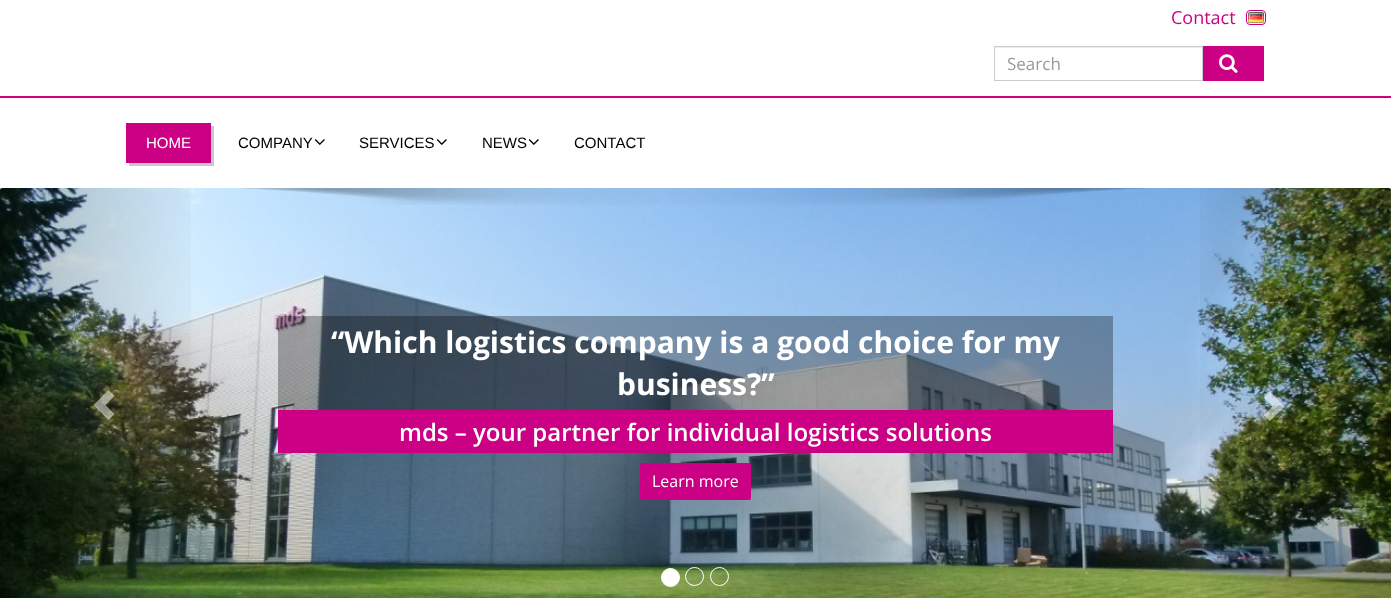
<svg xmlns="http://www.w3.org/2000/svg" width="1391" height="598">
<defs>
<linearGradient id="g1" gradientUnits="userSpaceOnUse" x1="0" y1="405" x2="209" y2="405"><stop offset="0" stop-color="#000" stop-opacity="0.25"/><stop offset="1" stop-color="#000" stop-opacity="0"/></linearGradient>
<linearGradient id="g2" gradientUnits="userSpaceOnUse" x1="1182" y1="405" x2="1391" y2="405"><stop offset="0" stop-color="#000" stop-opacity="0"/><stop offset="1" stop-color="#000" stop-opacity="0.25"/></linearGradient>
</defs>
<rect width="100%" height="100%" fill="#fff"/>
<text x="1171" y="24" style="font-family:Open Sans;font-size:18px;fill:#cc0084">Contact</text>
<rect x="1246.5" y="10.5" width="19" height="14" rx="3.5" fill="none" stroke="#cc0084"/>
<image x="1248" y="12" width="16" height="11" href="media/1.png"/>
<rect x="995" y="47" width="207" height="1" fill="#ececec"/>
<rect x="994.5" y="46.5" width="208" height="34" fill="none" stroke="#ccc"/>
<text x="1007" y="70" style="font-family:Open Sans;font-size:17px;fill:#999">Search</text>
<rect x="1203" y="46" width="61" height="35" fill="#cc0084"/>
<image x="1219" y="54" width="19" height="19" href="media/2.png"/>
<rect y="96" width="1391" height="2" fill="#cc0084"/>
<path d="M129 163v3h85v-40h-3v37z" fill="#c9c9c9"/>
<rect x="126" y="123" width="85" height="40" fill="#cc0084"/>
<text x="146" y="148" style="font-family:Liberation Sans;font-size:15px;fill:#fff">HOME</text>
<text x="238" y="148" style="font-family:Liberation Sans;font-size:15px;fill:#000">COMPANY</text>
<image x="314" y="139" width="11" height="6" href="media/3.png"/>
<text x="359" y="148" style="font-family:Liberation Sans;font-size:15px;fill:#000">SERVICES</text>
<image x="436" y="139" width="11" height="6" href="media/3.png"/>
<text x="482" y="148" style="font-family:Liberation Sans;font-size:15px;fill:#000">NEWS</text>
<image x="528" y="139" width="11" height="6" href="media/3.png"/>
<text x="574" y="148" style="font-family:Liberation Sans;font-size:15px;fill:#000">CONTACT</text>
<image x="0" y="188" width="1391" height="410" href="media/5.png"/>
<image x="241" y="188" width="907" height="17" href="media/4.png"/>
<rect y="188" width="191" height="410" fill="url(#g1)"/>
<path d="M93.5 405l15 15l6-6l-9-9l9-9l-6-6z" fill="#ffffff80"/>
<rect x="278" y="316" width="835" height="94" fill="#0000004d"/>
<text x="331" y="353" style="font-family:Open Sans;font-size:30px;font-weight:bold;fill:#fff">“Which logistics company is a good choice for my</text>
<text x="617" y="395" style="font-family:Open Sans;font-size:30px;font-weight:bold;fill:#fff">business?”</text>
<rect x="278" y="410" width="835" height="43" fill="#cc0084"/>
<text x="399" y="441" style="font-family:Open Sans;font-size:24px;font-weight:600;fill:#fff">mds – your partner for individual logistics solutions</text>
<rect x="641" y="464" width="109" height="35" rx="1" fill="#cc0084" stroke="#cc0084" stroke-width="2"/>
<text x="652" y="487" style="font-family:Open Sans;font-size:16px;fill:#fff">Learn more</text>
<rect x="1200" y="188" width="191" height="410" fill="url(#g2)"/>
<path d="M1264 415l8.5-8.5l-8.5-9l6-6l14.5 15l-14.5 14.5z" fill="#ffffff80"/>
<circle cx="670.5" cy="577.5" r="9" fill="#fff" stroke="#fff"/>
<circle cx="694.5" cy="576.5" r="9" fill="none" stroke="#fff"/>
<circle cx="719.5" cy="576.5" r="9" fill="none" stroke="#fff"/>
</svg>
